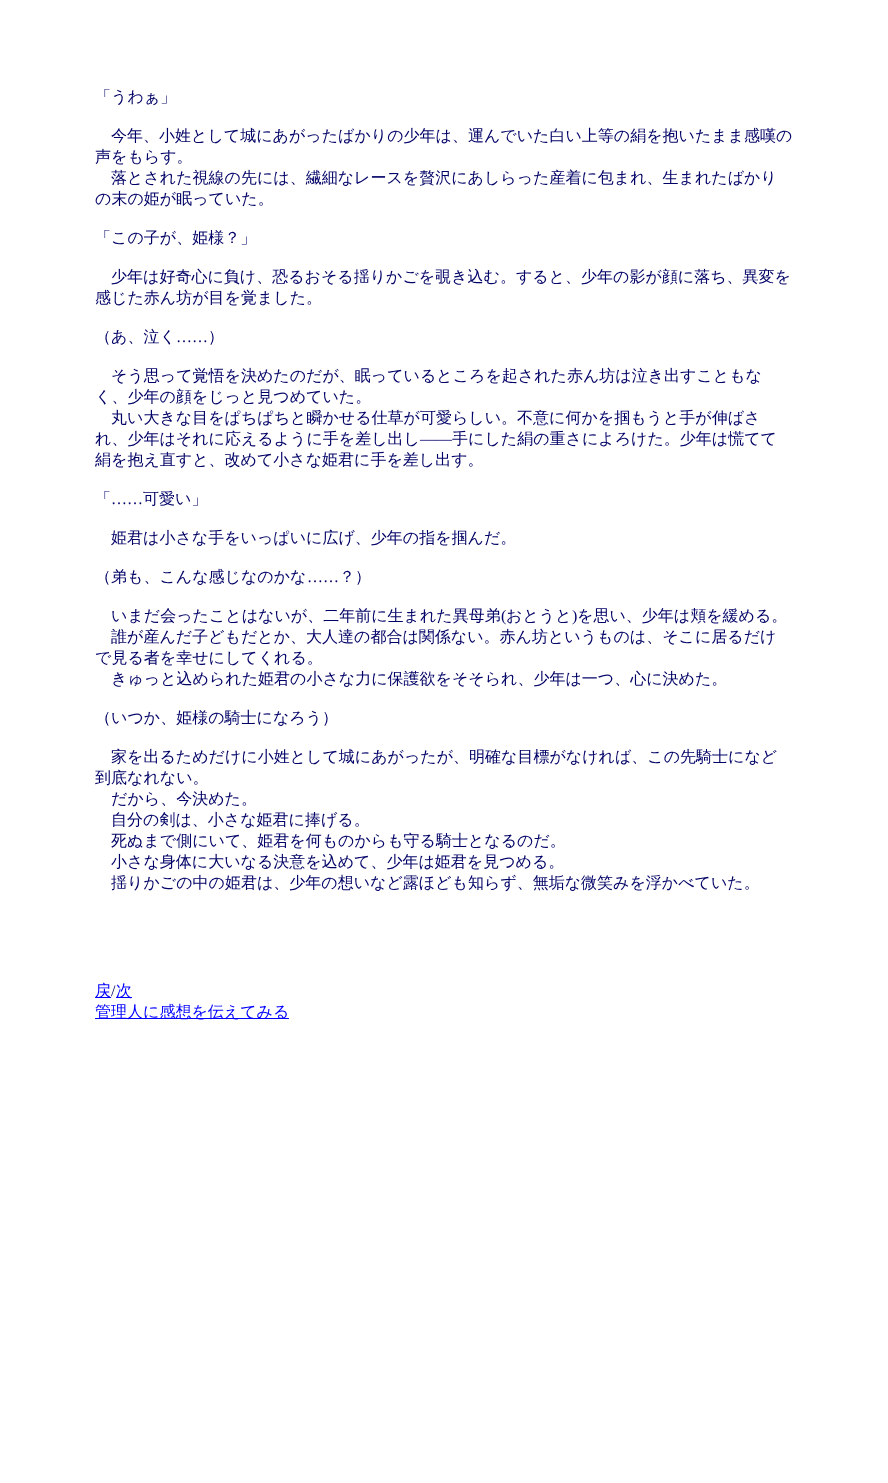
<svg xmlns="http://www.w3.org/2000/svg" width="888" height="1483">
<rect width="100%" height="100%" fill="#fff"/>
<text x="95" y="102" style="font-family:WenQuanYi Zen Hei;font-size:16px;font-weight:500;fill:#006">「うわぁ」</text>
<text x="111" y="141" style="font-family:WenQuanYi Zen Hei;font-size:16px;font-weight:500;fill:#006">今年、小姓として城にあがったばかりの少年は、運んでいた白い上等の絹を抱いたまま感嘆の</text>
<text x="95" y="162" style="font-family:WenQuanYi Zen Hei;font-size:16px;font-weight:500;fill:#006">声をもらす。</text>
<text x="111" y="183" style="font-family:WenQuanYi Zen Hei;font-size:16px;font-weight:500;fill:#006">落とされた視線の先には、繊細なレースを贅沢にあしらった産着に包まれ、生まれたばかり</text>
<text x="95" y="204" style="font-family:WenQuanYi Zen Hei;font-size:16px;font-weight:500;fill:#006">の末の姫が眠っていた。</text>
<text x="95" y="243" style="font-family:WenQuanYi Zen Hei;font-size:16px;font-weight:500;fill:#006">「この子が、姫様？」</text>
<text x="111" y="282" style="font-family:WenQuanYi Zen Hei;font-size:16px;font-weight:500;fill:#006">少年は好奇心に負け、恐るおそる揺りかごを覗き込む。すると、少年の影が顔に落ち、異変を</text>
<text x="95" y="303" style="font-family:WenQuanYi Zen Hei;font-size:16px;font-weight:500;fill:#006">感じた赤ん坊が目を覚ました。</text>
<text x="95" y="342" style="font-family:WenQuanYi Zen Hei;font-size:16px;font-weight:500;fill:#006">（あ、泣く</text>
<text x="176" y="342" style="font-family:Liberation Serif;font-size:16px;fill:#006">……</text>
<text x="208" y="342" style="font-family:WenQuanYi Zen Hei;font-size:16px;font-weight:500;fill:#006">）</text>
<text x="111" y="381" style="font-family:WenQuanYi Zen Hei;font-size:16px;font-weight:500;fill:#006">そう思って覚悟を決めたのだが、眠っているところを起された赤ん坊は泣き出すこともな</text>
<text x="95" y="402" style="font-family:WenQuanYi Zen Hei;font-size:16px;font-weight:500;fill:#006">く、少年の顔をじっと見つめていた。</text>
<text x="111" y="423" style="font-family:WenQuanYi Zen Hei;font-size:16px;font-weight:500;fill:#006">丸い大きな目をぱちぱちと瞬かせる仕草が可愛らしい。不意に何かを掴もうと手が伸ばさ</text>
<text x="95" y="444" style="font-family:WenQuanYi Zen Hei;font-size:16px;font-weight:500;fill:#006">れ、少年はそれに応えるように手を差し出し</text>
<text x="420" y="444" style="font-family:Liberation Serif;font-size:16px;fill:#006">――</text>
<text x="452" y="444" style="font-family:WenQuanYi Zen Hei;font-size:16px;font-weight:500;fill:#006">手にした絹の重さによろけた。少年は慌てて</text>
<text x="95" y="465" style="font-family:WenQuanYi Zen Hei;font-size:16px;font-weight:500;fill:#006">絹を抱え直すと、改めて小さな姫君に手を差し出す。</text>
<text x="95" y="504" style="font-family:WenQuanYi Zen Hei;font-size:16px;font-weight:500;fill:#006">「</text>
<text x="143" y="504" style="font-family:WenQuanYi Zen Hei;font-size:16px;font-weight:500;fill:#006">可愛い」</text>
<text x="111" y="504" style="font-family:Liberation Serif;font-size:16px;fill:#006">……</text>
<text x="111" y="543" style="font-family:WenQuanYi Zen Hei;font-size:16px;font-weight:500;fill:#006">姫君は小さな手をいっぱいに広げ、少年の指を掴んだ。</text>
<text x="95" y="582" style="font-family:WenQuanYi Zen Hei;font-size:16px;font-weight:500;fill:#006">（弟も、こんな感じなのかな</text>
<text x="307" y="582" style="font-family:Liberation Serif;font-size:16px;fill:#006">……</text>
<text x="339" y="582" style="font-family:WenQuanYi Zen Hei;font-size:16px;font-weight:500;fill:#006">？）</text>
<text x="111" y="621" style="font-family:WenQuanYi Zen Hei;font-size:16px;font-weight:500;fill:#006">いまだ会ったことはないが、二年前に生まれた異母弟</text>
<text x="501" y="621" style="font-family:Liberation Serif;font-size:16px;fill:#006">(</text>
<text x="506" y="621" style="font-family:WenQuanYi Zen Hei;font-size:16px;font-weight:500;fill:#006">おとうと</text>
<text x="572" y="621" style="font-family:Liberation Serif;font-size:16px;fill:#006">)</text>
<text x="577" y="621" style="font-family:WenQuanYi Zen Hei;font-size:16px;font-weight:500;fill:#006">を思い、少年は頬を緩める。</text>
<text x="111" y="642" style="font-family:WenQuanYi Zen Hei;font-size:16px;font-weight:500;fill:#006">誰が産んだ子どもだとか、大人達の都合は関係ない。赤ん坊というものは、そこに居るだけ</text>
<text x="95" y="663" style="font-family:WenQuanYi Zen Hei;font-size:16px;font-weight:500;fill:#006">で見る者を幸せにしてくれる。</text>
<text x="111" y="684" style="font-family:WenQuanYi Zen Hei;font-size:16px;font-weight:500;fill:#006">きゅっと込められた姫君の小さな力に保護欲をそそられ、少年は一つ、心に決めた。</text>
<text x="95" y="723" style="font-family:WenQuanYi Zen Hei;font-size:16px;font-weight:500;fill:#006">（いつか、姫様の騎士になろう）</text>
<text x="111" y="762" style="font-family:WenQuanYi Zen Hei;font-size:16px;font-weight:500;fill:#006">家を出るためだけに小姓として城にあがったが、明確な目標がなければ、この先騎士になど</text>
<text x="95" y="783" style="font-family:WenQuanYi Zen Hei;font-size:16px;font-weight:500;fill:#006">到底なれない。</text>
<text x="111" y="804" style="font-family:WenQuanYi Zen Hei;font-size:16px;font-weight:500;fill:#006">だから、今決めた。</text>
<text x="111" y="825" style="font-family:WenQuanYi Zen Hei;font-size:16px;font-weight:500;fill:#006">自分の剣は、小さな姫君に捧げる。</text>
<text x="111" y="846" style="font-family:WenQuanYi Zen Hei;font-size:16px;font-weight:500;fill:#006">死ぬまで側にいて、姫君を何ものからも守る騎士となるのだ。</text>
<text x="111" y="867" style="font-family:WenQuanYi Zen Hei;font-size:16px;font-weight:500;fill:#006">小さな身体に大いなる決意を込めて、少年は姫君を見つめる。</text>
<text x="111" y="888" style="font-family:WenQuanYi Zen Hei;font-size:16px;font-weight:500;fill:#006">揺りかごの中の姫君は、少年の想いなど露ほども知らず、無垢な微笑みを浮かべていた。</text>
<rect x="95" y="997" width="16" height="1" fill="#00f"/>
<text x="95" y="996" style="font-family:WenQuanYi Zen Hei;font-size:16px;font-weight:500;fill:#00f">戻</text>
<text x="111" y="996" style="font-family:Liberation Serif;font-size:16px;fill:#006">/</text>
<rect x="116" y="997" width="16" height="1" fill="#00f"/>
<text x="116" y="996" style="font-family:WenQuanYi Zen Hei;font-size:16px;font-weight:500;fill:#00f">次</text>
<rect x="95" y="1018" width="194" height="1" fill="#00f"/>
<text x="95" y="1017" style="font-family:WenQuanYi Zen Hei;font-size:16px;font-weight:500;fill:#00f">管理人に感想を伝えてみる</text>
</svg>
